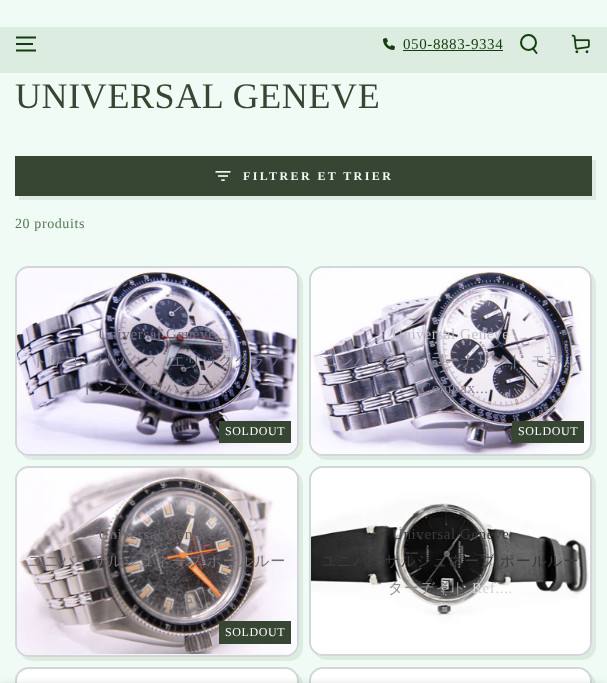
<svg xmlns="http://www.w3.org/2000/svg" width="607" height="683">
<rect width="100%" height="100%" fill="#f0fbf6"/>
<rect y="27" width="607" height="46" fill="#ddece1"/>
<path d="M16 50.5h20m-20-6.5h17m-17-6.5h20" fill="none" stroke="#133e0d" stroke-width="1.9"/>
<image x="383" y="38" width="12" height="12" href="media/1.png"/>
<text x="403" y="49" style="font-family:Liberation Serif;font-size:15px;letter-spacing:0.6px;fill:#133e0d">050-8883-9334</text>
<rect x="403" y="50" width="100" height="1" fill="#133e0d"/>
<circle cx="528.5" cy="42.5" r="7.5" fill="none" stroke="#133e0d" stroke-width="2"/>
<path d="M533 48.5l3.5 4.5" fill="none" stroke="#133e0d" stroke-width="2" stroke-linecap="round"/>
<image x="571" y="34" width="19" height="20" href="media/2.png"/>
<text x="15" y="108" style="font-family:Liberation Serif;font-size:36px;letter-spacing:0.6px;fill:#364633">UNIVERSAL GENEVE</text>
<path d="M19 196v4h577v-40h-4v36z" fill="#ddece1"/>
<rect x="15" y="156" width="577" height="40" fill="#364633"/>
<image x="215" y="171" width="16" height="10" href="media/3.png"/>
<text x="243" y="180" style="font-family:Liberation Serif;font-size:12px;font-weight:bold;letter-spacing:2.4px;fill:#f0fbf6">FILTRER ET TRIER</text>
<text x="15" y="228" style="font-family:Liberation Serif;font-size:14px;letter-spacing:0.6px;fill:#557753">20 produits</text>
<path d="M21 454c3 3 7 6 12 6h256c8 0 14-6 14-14v-162c0-5-3-9-6-12c1 3 2 5 2 8v162c0 8-6 14-14 14h-256c-3 0-5-1-8-2z" fill="#ddece1"/>
<rect x="16" y="267" width="282" height="188" rx="13" fill="none" stroke="#d2d5d9" stroke-width="2"/>
<image x="17" y="268" width="280" height="186" href="media/4.png"/>
<text x="98" y="339" style="font-family:Liberation Serif;font-size:15px;letter-spacing:0.6px;fill:#726b80">Universal Geneve</text>
<text x="32" y="366" style="font-family:WenQuanYi Zen Hei;font-size:15px;font-weight:500;letter-spacing:0.6px;fill:#8d8799">トリコンパックス</text>
<text x="170" y="366" style="font-family:WenQuanYi Zen Hei;font-size:15px;font-weight:500;letter-spacing:0.6px;fill:#6b687c">エリッククラプ</text>
<text x="81" y="393" word-spacing="-1" style="font-family:WenQuanYi Zen Hei;font-size:15px;font-weight:500;letter-spacing:0.6px;fill:#726b77">トン スノウハンズ</text>
<text x="213" y="393" style="font-family:Liberation Serif;font-size:15px;letter-spacing:0.6px;fill:#7f7a8f">"...</text>
<rect x="219" y="421" width="72" height="22" fill="#364633"/>
<text x="225" y="435" style="font-family:Liberation Serif;font-size:12px;letter-spacing:0.6px;fill:#fff">SOLDOUT</text>
<path d="M315 454c3 3 7 6 12 6h255c8 0 14-6 14-14v-162c0-5-3-9-6-12c1 3 2 5 2 8v162c0 8-6 14-14 14h-255c-3 0-5-1-8-2z" fill="#ddece1"/>
<rect x="310" y="267" width="281" height="188" rx="13" fill="none" stroke="#d2d5d9" stroke-width="2"/>
<image x="311" y="268" width="279" height="186" href="media/5.png"/>
<text x="392" y="339" style="font-family:Liberation Serif;font-size:15px;letter-spacing:0.6px;fill:#c1bdc8">Universal Geneve</text>
<text x="322" y="366" style="font-family:WenQuanYi Zen Hei;font-size:15px;font-weight:500;letter-spacing:0.6px;fill:#878296">コンパックス</text>
<text x="429" y="366" style="font-family:WenQuanYi Zen Hei;font-size:15px;font-weight:500;letter-spacing:0.6px;fill:#7a7683">ニーナリント</text>
<text x="531" y="366" style="font-family:WenQuanYi Zen Hei;font-size:15px;font-weight:500;letter-spacing:0.6px;fill:#b4afbc">モデル</text>
<text x="412" y="393" style="font-family:Liberation Serif;font-size:15px;letter-spacing:0.6px;fill:#878296">/ Compax...</text>
<rect x="512" y="421" width="72" height="22" fill="#364633"/>
<text x="518" y="435" style="font-family:Liberation Serif;font-size:12px;letter-spacing:0.6px;fill:#fff">SOLDOUT</text>
<path d="M21 655c3 3 7 6 12 6h256c8 0 14-6 14-14v-163c0-5-3-9-6-12c1 3 2 5 2 8v163c0 8-6 14-14 14h-256c-3 0-5-1-8-2z" fill="#ddece1"/>
<rect x="16" y="467" width="282" height="189" rx="13" fill="none" stroke="#d2d5d9" stroke-width="2"/>
<rect x="17" y="468" width="280" height="187" rx="12" fill="#f3f3f3"/>
<image x="17" y="468" width="280" height="186" href="media/6.png"/>
<text x="98" y="539" style="font-family:Liberation Serif;font-size:15px;letter-spacing:0.6px;fill:#6c6669">Universal Geneve</text>
<text x="28" y="566" word-spacing="-1" style="font-family:WenQuanYi Zen Hei;font-size:15px;font-weight:500;letter-spacing:0.6px;fill:#797072">ユニバーサルジュネーブ ポールルー</text>
<text x="210" y="593" style="font-family:Liberation Serif;font-size:15px;letter-spacing:0.6px;fill:#564f51">.</text>
<rect x="219" y="621" width="72" height="23" fill="#364633"/>
<text x="225" y="636" style="font-family:Liberation Serif;font-size:12px;letter-spacing:0.6px;fill:#fff">SOLDOUT</text>
<path d="M315 654c3 3 7 6 12 6h255c8 0 14-6 14-14v-162c0-5-3-9-6-12c1 3 2 5 2 8v162c0 8-6 14-14 14h-255c-3 0-5-1-8-2z" fill="#ddece1"/>
<rect x="310" y="467" width="281" height="188" rx="13" fill="none" stroke="#d2d5d9" stroke-width="2"/>
<image x="311" y="468" width="279" height="186" href="media/7.png"/>
<text x="392" y="539" style="font-family:Liberation Serif;font-size:15px;letter-spacing:0.6px;fill:#3c3b3b">Universal Geneve</text>
<text x="321" y="566" word-spacing="-1" style="font-family:WenQuanYi Zen Hei;font-size:15px;font-weight:500;letter-spacing:0.6px;fill:#3c3b3b">ユニバーサルジュネーブ ポールルー</text>
<text x="388" y="593" style="font-family:WenQuanYi Zen Hei;font-size:15px;font-weight:500;letter-spacing:0.6px;fill:#8e8d8c">ターデイト</text>
<text x="472" y="593" style="font-family:Liberation Serif;font-size:15px;letter-spacing:0.6px;fill:#d4d4d3">Ref....</text>
<path d="M21 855c3 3 7 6 12 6h256c8 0 14-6 14-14v-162c0-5-3-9-6-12c1 3 2 5 2 8v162c0 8-6 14-14 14h-256c-3 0-5-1-8-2z" fill="#ddece1"/>
<rect x="16" y="668" width="282" height="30" rx="13" fill="none" stroke="#d2d5d9" stroke-width="2"/>
<image x="17" y="669" width="280" height="14" href="media/8.png"/>
<path d="M315 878c3 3 7 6 12 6h255c8 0 14-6 14-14v-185c0-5-3-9-6-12c1 3 2 5 2 8v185c0 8-6 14-14 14h-255c-3 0-5-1-8-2z" fill="#ddece1"/>
<rect x="310" y="668" width="281" height="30" rx="13" fill="none" stroke="#d2d5d9" stroke-width="2"/>
<image x="311" y="669" width="279" height="14" href="media/9.png"/>
<rect y="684" width="607" height="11" fill="#133e0d26" filter="blur(4px)"/>
</svg>
